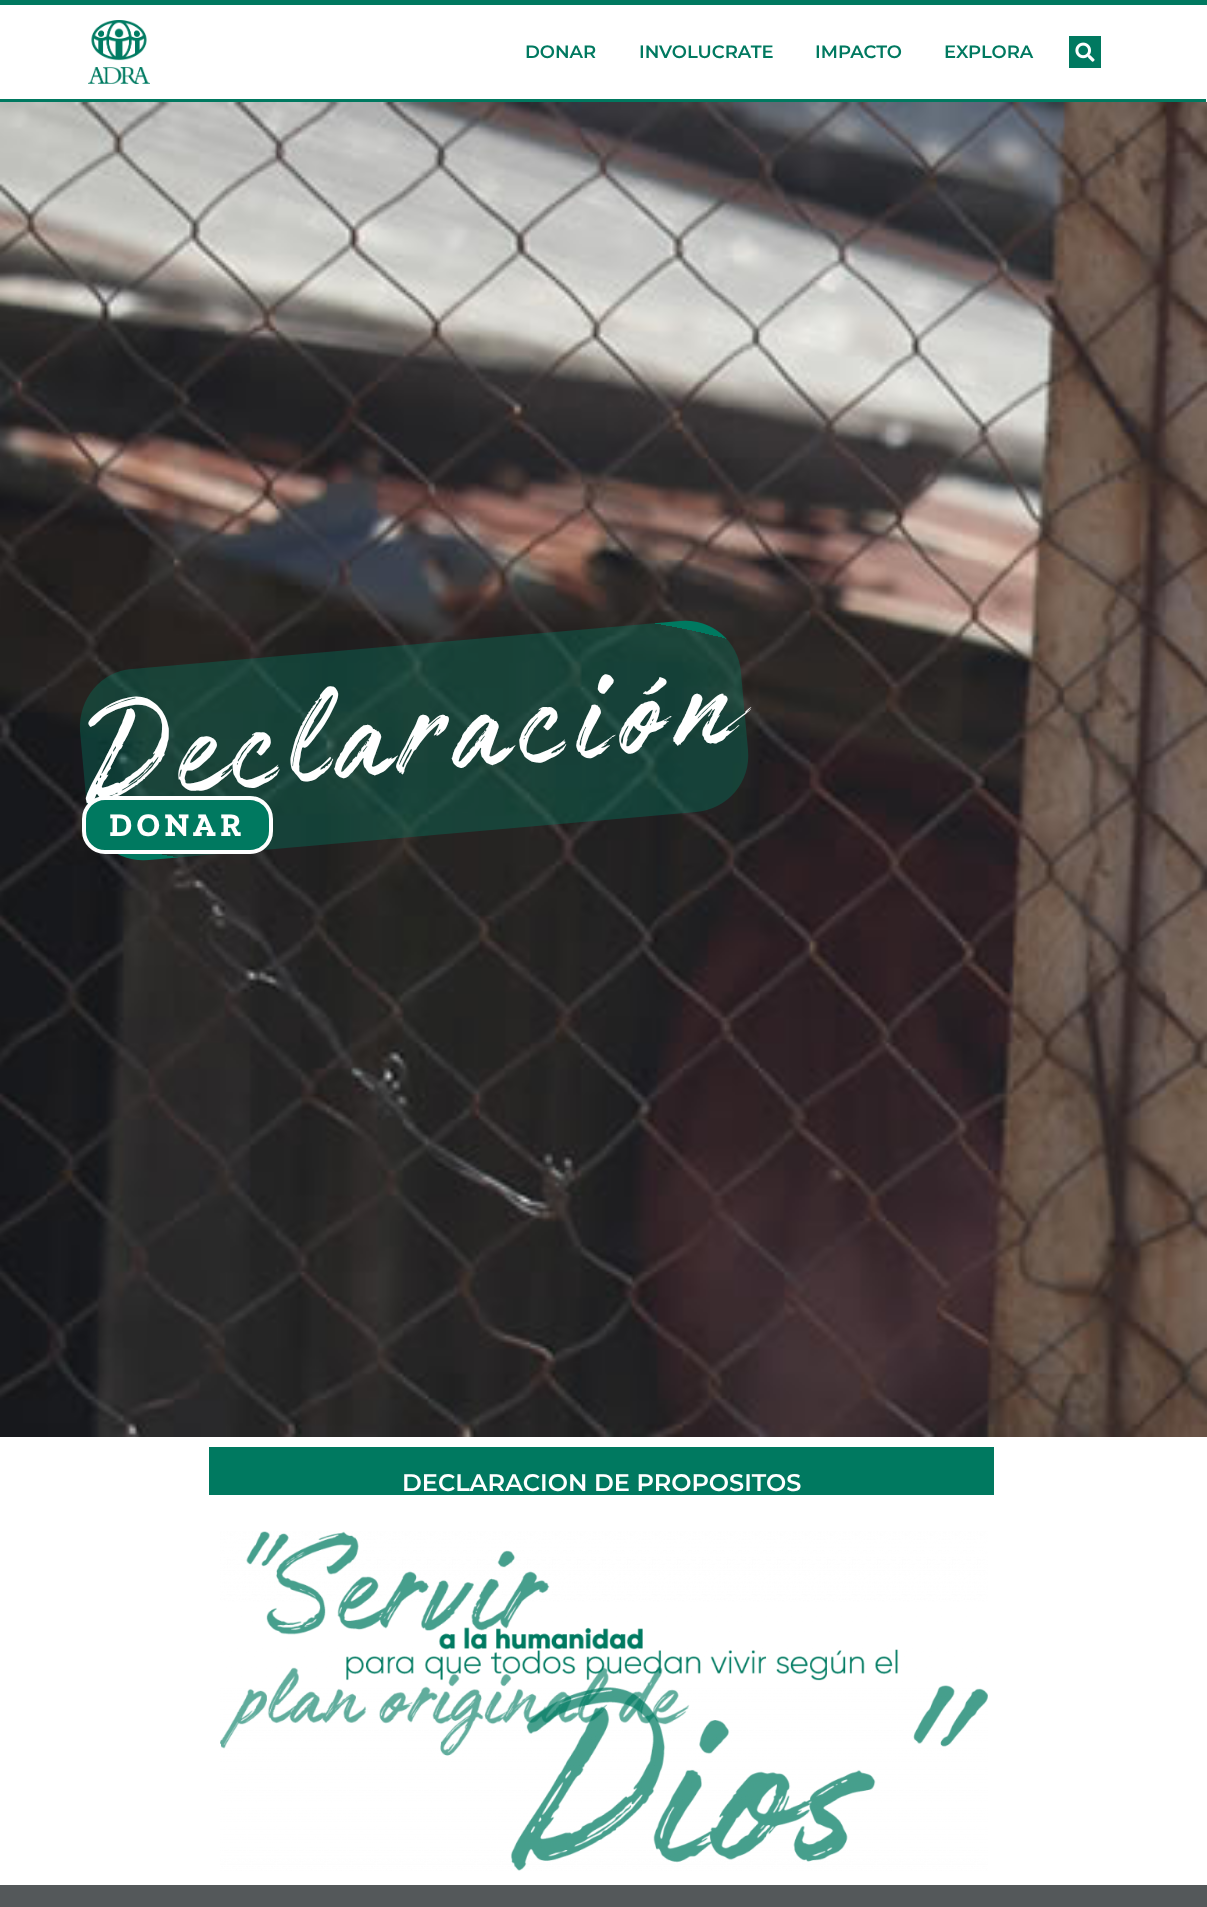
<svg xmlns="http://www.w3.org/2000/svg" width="1207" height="1907">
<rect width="100%" height="100%" fill="#fff"/>
<rect width="1207" height="5" fill="#007960"/>
<rect y="99" width="1206" height="3" fill="#007960"/>
<image x="88" y="20" width="62" height="64" href="media/1.png"/>
<text x="525" y="58" style="font-family:Montserrat;font-size:18px;font-weight:600;fill:#007960">DONAR</text>
<text x="639" y="58" style="font-family:Montserrat;font-size:18px;font-weight:600;fill:#007960">INVOLUCRATE</text>
<text x="815" y="58" style="font-family:Montserrat;font-size:18px;font-weight:600;fill:#007960">IMPACTO</text>
<text x="944" y="58" style="font-family:Montserrat;font-size:18px;font-weight:600;fill:#007960">EXPLORA</text>
<rect x="1069" y="36" width="32" height="32" fill="#007960"/>
<image x="1075" y="42" width="20" height="20" href="media/2.png"/>
<image x="0" y="102" width="1207" height="1335" href="media/3.png"/>
<text x="86" y="801" transform="rotate(-5 86 801)" style="font-family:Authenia;font-size:160px;letter-spacing:10px;fill:#fff">Declaración</text>
<rect x="84" y="798" width="187" height="54" rx="21" fill="#007960" stroke="#fff" stroke-width="4"/>
<text x="109" y="836" style="font-family:Zilla Slab;font-size:33px;font-weight:bold;letter-spacing:4.5px;fill:#fff">DONAR</text>
<rect x="209" y="1447" width="785" height="48" fill="#007960"/>
<text x="402" y="1491" style="font-family:Montserrat;font-size:24px;font-weight:600;fill:#fff">DECLARACION DE PROPOSITOS</text>
<image x="220" y="1531" width="768" height="340" href="media/4.png"/>
<rect y="1885" width="1207" height="22" fill="#54585a"/>
</svg>
